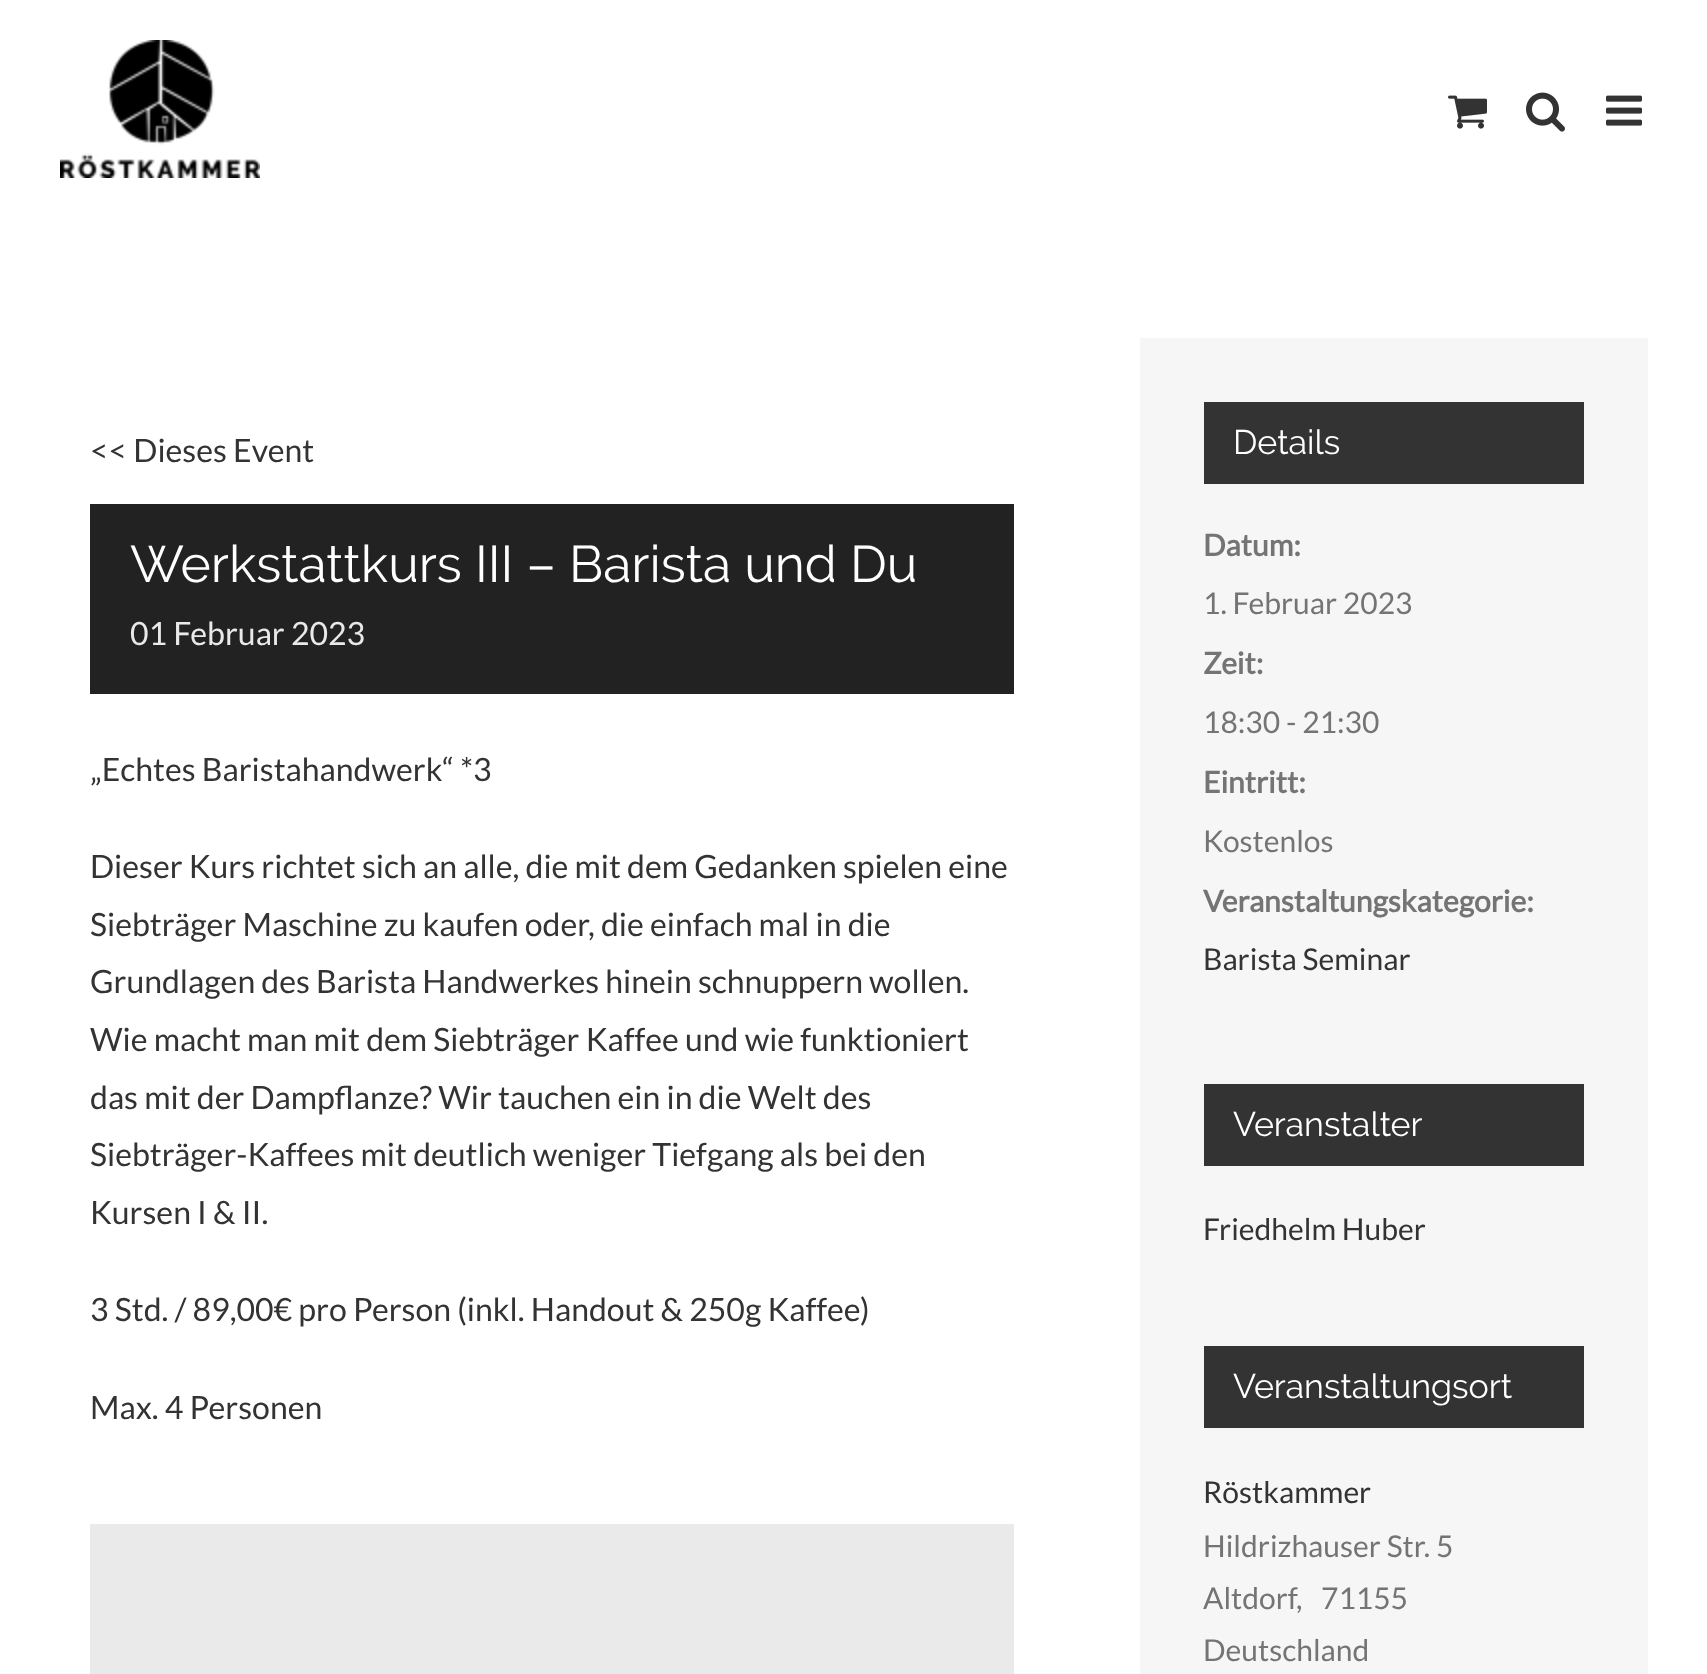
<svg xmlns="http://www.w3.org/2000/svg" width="1707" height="1674">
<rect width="100%" height="100%" fill="#fff"/>
<image x="60" y="40" width="200" height="138" href="media/1.png"/>
<image x="1448" y="95" width="39" height="34" href="media/2.png"/>
<image x="1526" y="92" width="39" height="40" href="media/3.png"/>
<image x="1606" y="95" width="36" height="31" href="media/4.png"/>
<text x="90" y="462" style="font-family:Lato;font-size:32px;fill:#333">&lt;&lt; Dieses Event</text>
<rect x="90" y="504" width="924" height="190" fill="#222"/>
<text x="130" y="582" style="font-family:Raleway;font-size:51.5px;fill:#fff">Werkstattkurs III – Barista und Du</text>
<text x="130" y="645" style="font-family:Lato;font-size:32px;fill:#e9e9e9">01 Februar 2023</text>
<text x="90" y="781" style="font-family:Lato;font-size:32px;fill:#333">„Echtes Baristahandwerk“ *3</text>
<text x="90" y="878" style="font-family:Lato;font-size:32px;fill:#333">Dieser Kurs richtet sich an alle, die mit dem Gedanken spielen eine</text>
<text x="90" y="936" style="font-family:Lato;font-size:32px;fill:#333">Siebträger Maschine zu kaufen oder, die einfach mal in die</text>
<text x="90" y="993" style="font-family:Lato;font-size:32px;fill:#333">Grundlagen des Barista Handwerkes hinein schnuppern wollen.</text>
<text x="90" y="1051" style="font-family:Lato;font-size:32px;fill:#333">Wie macht man mit dem Siebträger Kaffee und wie funktioniert</text>
<text x="90" y="1109" style="font-family:Lato;font-size:32px;fill:#333">das mit der Dampflanze? Wir tauchen ein in die Welt des</text>
<text x="90" y="1166" style="font-family:Lato;font-size:32px;fill:#333">Siebträger-Kaffees mit deutlich weniger Tiefgang als bei den</text>
<text x="90" y="1224" style="font-family:Lato;font-size:32px;fill:#333">Kursen I &amp; II.</text>
<text x="90" y="1321" style="font-family:Lato;font-size:32px;fill:#333">3 Std. / 89,00€ pro Person (inkl. Handout &amp; 250g Kaffee)</text>
<text x="90" y="1419" style="font-family:Lato;font-size:32px;fill:#333">Max. 4 Personen</text>
<rect x="90" y="1524" width="924" height="150" fill="#eaeaea"/>
<rect x="1140" y="338" width="508" height="1336" fill="#f6f6f6"/>
<rect x="1204" y="402" width="380" height="82" fill="#333"/>
<text x="1233" y="454" style="font-family:Raleway;font-size:34px;fill:#fff">Details</text>
<text x="1203" y="556" style="font-family:Lato;font-size:30px;font-weight:bold;fill:#747474">Datum:</text>
<text x="1203" y="614" style="font-family:Lato;font-size:30px;fill:#747474">1. Februar 2023</text>
<text x="1203" y="674" style="font-family:Lato;font-size:30px;font-weight:bold;fill:#747474">Zeit:</text>
<text x="1203" y="733" style="font-family:Lato;font-size:30px;fill:#747474">18:30 - 21:30</text>
<text x="1203" y="793" style="font-family:Lato;font-size:30px;font-weight:bold;fill:#747474">Eintritt:</text>
<text x="1203" y="852" style="font-family:Lato;font-size:30px;fill:#747474">Kostenlos</text>
<text x="1203" y="912" style="font-family:Lato;font-size:30px;font-weight:bold;fill:#747474">Veranstaltungskategorie:</text>
<text x="1203" y="970" style="font-family:Lato;font-size:30px;fill:#333">Barista Seminar</text>
<rect x="1204" y="1084" width="380" height="82" fill="#333"/>
<text x="1233" y="1136" style="font-family:Raleway;font-size:34px;fill:#fff">Veranstalter</text>
<text x="1203" y="1240" style="font-family:Lato;font-size:30px;fill:#333">Friedhelm Huber</text>
<rect x="1204" y="1346" width="380" height="82" fill="#333"/>
<text x="1233" y="1398" style="font-family:Raleway;font-size:34px;fill:#fff">Veranstaltungsort</text>
<text x="1203" y="1503" style="font-family:Lato;font-size:30px;fill:#333">Röstkammer</text>
<text x="1203" y="1557" style="font-family:Lato;font-size:30px;fill:#747474">Hildrizhauser Str. 5</text>
<text x="1203" y="1609" style="font-family:Lato;font-size:30px;fill:#747474">Altdorf</text>
<text x="1296" y="1609" style="font-family:Lato;font-size:30px;fill:#747474">,</text>
<text x="1321" y="1609" style="font-family:Lato;font-size:30px;fill:#747474">71155</text>
<text x="1203" y="1661" style="font-family:Lato;font-size:30px;fill:#747474">Deutschland</text>
</svg>
